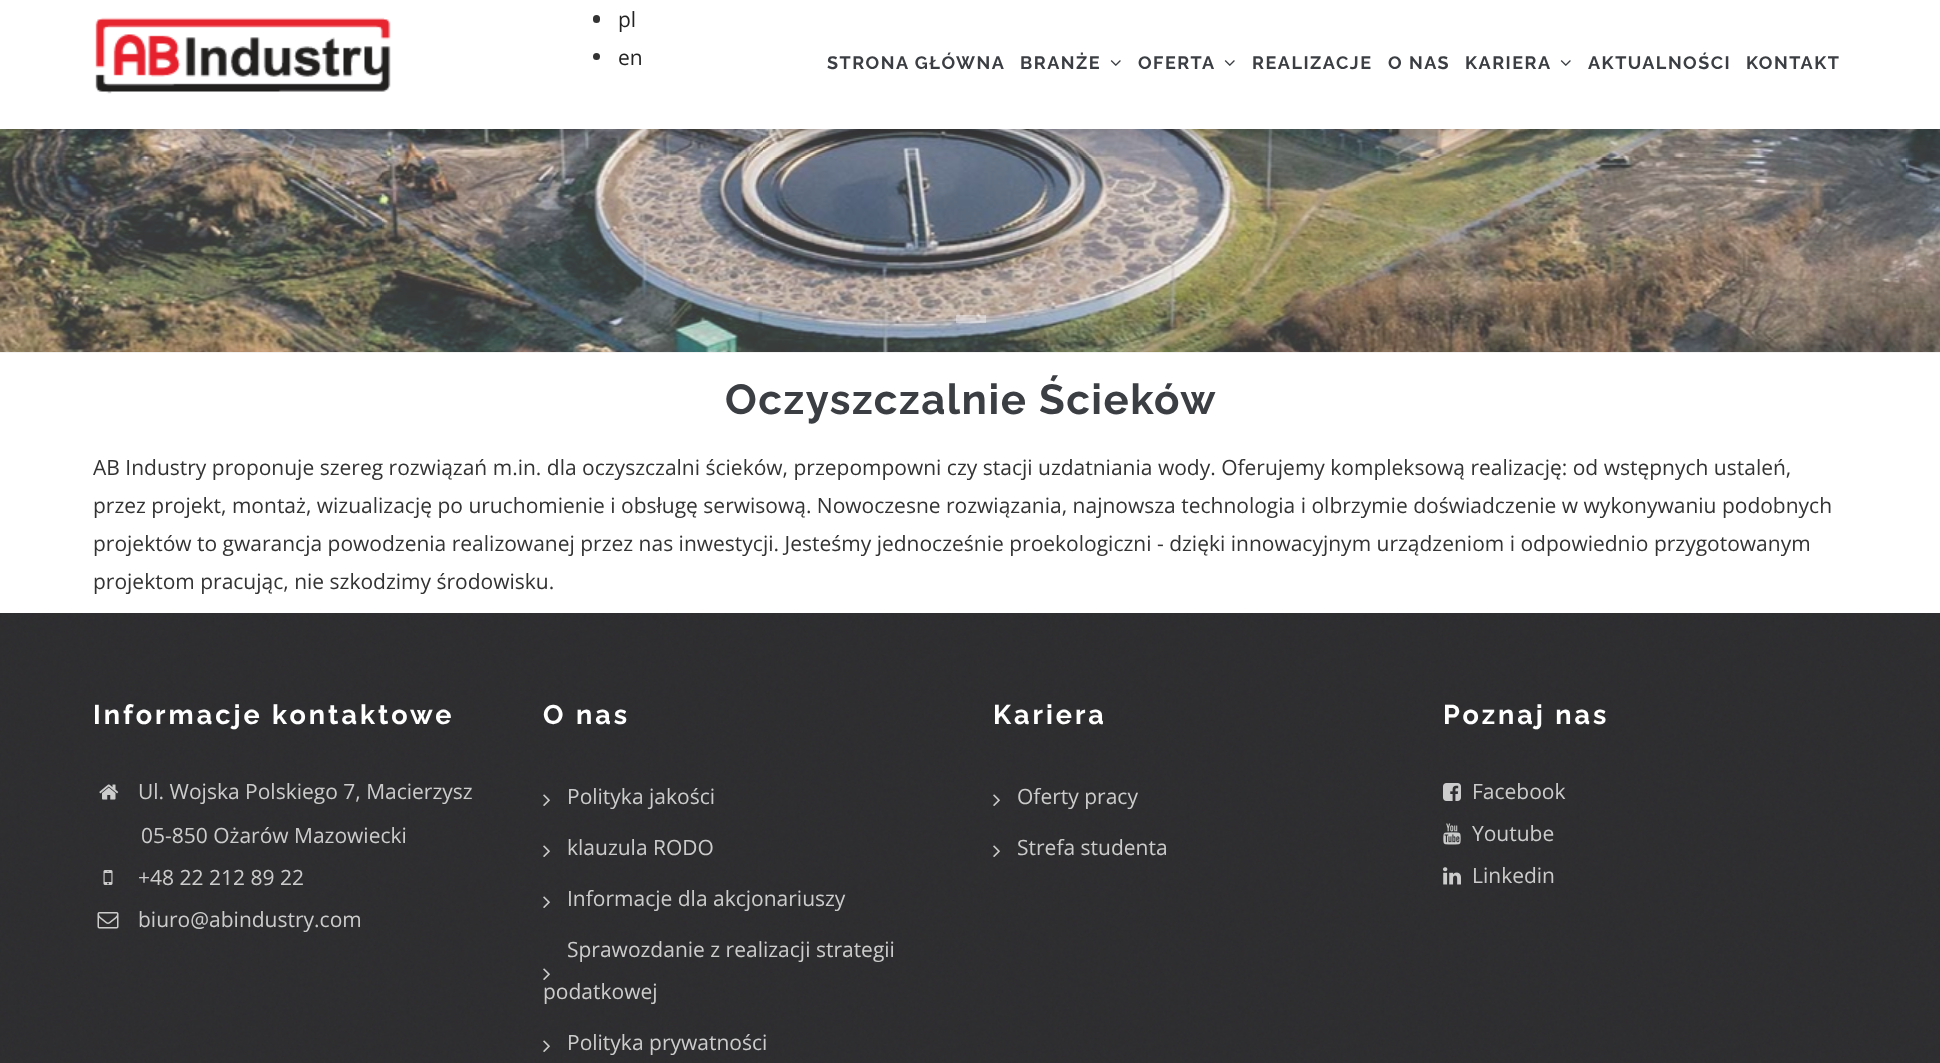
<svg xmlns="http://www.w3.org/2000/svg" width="1940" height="1063">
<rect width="100%" height="100%" fill="#fff"/>
<rect y="129" width="1940" height="224" fill="#f3f3f3"/>
<image x="0" y="129" width="1940" height="223" href="media/3.png"/>
<rect x="-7" y="-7" width="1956" height="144" fill="#0000001a" filter="blur(4px)"/>
<rect width="1940" height="129" fill="#fff"/>
<image x="95" y="17" width="296" height="77" href="media/1.png"/>
<rect x="593" y="15" width="7" height="8" rx="3.5" fill="#333"/>
<text x="618" y="27" style="font-family:Open Sans;font-size:21px;fill:#222">pl</text>
<circle cx="596.5" cy="56.5" r="3.5" fill="#333"/>
<text x="618" y="65" style="font-family:Open Sans;font-size:21px;fill:#222">en</text>
<text x="827" y="69" style="font-family:Raleway;font-size:18px;font-weight:bold;letter-spacing:1.5px;fill:#3b3e43">STRONA GŁÓWNA</text>
<text x="1020" y="69" style="font-family:Raleway;font-size:18px;font-weight:bold;letter-spacing:1.5px;fill:#3b3e43">BRANŻE</text>
<image x="1110" y="60" width="11" height="6" href="media/2.png"/>
<text x="1138" y="69" style="font-family:Raleway;font-size:18px;font-weight:bold;letter-spacing:1.5px;fill:#3b3e43">OFERTA</text>
<image x="1224" y="60" width="11" height="6" href="media/2.png"/>
<text x="1252" y="69" style="font-family:Raleway;font-size:18px;font-weight:bold;letter-spacing:1.5px;fill:#3b3e43">REALIZACJE</text>
<text x="1388" y="69" style="font-family:Raleway;font-size:18px;font-weight:bold;letter-spacing:1.5px;fill:#3b3e43">O NAS</text>
<text x="1465" y="69" style="font-family:Raleway;font-size:18px;font-weight:bold;letter-spacing:1.5px;fill:#3b3e43">KARIERA</text>
<image x="1560" y="60" width="11" height="6" href="media/2.png"/>
<text x="1588" y="69" style="font-family:Raleway;font-size:18px;font-weight:bold;letter-spacing:1.5px;fill:#3b3e43">AKTUALNOŚCI</text>
<text x="1746" y="69" style="font-family:Raleway;font-size:18px;font-weight:bold;letter-spacing:1.5px;fill:#3b3e43">KONTAKT</text>
<rect x="956" y="315" width="30" height="8" fill="#ffffff66"/>
<text x="725" y="414" style="font-family:Raleway;font-size:42px;font-weight:bold;letter-spacing:1.5px;fill:#3b3e43">Oczyszczalnie Ścieków</text>
<text x="93" y="475" style="font-family:Open Sans;font-size:21px;fill:#333">AB Industry proponuje szereg rozwiązań m.in. dla oczyszczalni ścieków, przepompowni czy stacji uzdatniania wody. Oferujemy kompleksową realizację: od wstępnych ustaleń,</text>
<text x="93" y="513" style="font-family:Open Sans;font-size:21px;fill:#333">przez projekt, montaż, wizualizację po uruchomienie i obsługę serwisową. Nowoczesne rozwiązania, najnowsza technologia i olbrzymie doświadczenie w wykonywaniu podobnych</text>
<text x="93" y="551" style="font-family:Open Sans;font-size:21px;fill:#333">projektów to gwarancja powodzenia realizowanej przez nas inwestycji. Jesteśmy jednocześnie proekologiczni - dzięki innowacyjnym urządzeniom i odpowiednio przygotowanym</text>
<text x="93" y="589" style="font-family:Open Sans;font-size:21px;fill:#333">projektom pracując, nie szkodzimy środowisku.</text>
<image x="0" y="613" width="1940" height="450" href="media/4.png"/>
<text x="93" y="724" style="font-family:Raleway;font-size:27px;font-weight:bold;letter-spacing:3px;fill:#fff">Informacje kontaktowe</text>
<image x="99" y="784" width="20" height="16" href="media/5.png"/>
<text x="138" y="799" style="font-family:Open Sans;font-size:21px;fill:#ccc">Ul. Wojska Polskiego 7, Macierzysz</text>
<text x="141" y="843" style="font-family:Open Sans;font-size:21px;fill:#ccc">05-850 Ożarów Mazowiecki</text>
<image x="103" y="870" width="10" height="15" href="media/6.png"/>
<text x="138" y="885" style="font-family:Open Sans;font-size:21px;fill:#ccc">+48 22 212 89 22</text>
<image x="97" y="912" width="22" height="17" href="media/7.png"/>
<text x="138" y="927" style="font-family:Open Sans;font-size:21px;fill:#ccc">biuro@abindustry.com</text>
<text x="543" y="724" style="font-family:Raleway;font-size:27px;font-weight:bold;letter-spacing:3px;fill:#fff">O nas</text>
<image x="543" y="794" width="7" height="12" href="media/8.png"/>
<text x="567" y="804" style="font-family:Open Sans;font-size:21px;fill:#ccc">Polityka jakości</text>
<image x="543" y="845" width="7" height="12" href="media/9.png"/>
<text x="567" y="855" style="font-family:Open Sans;font-size:21px;fill:#ccc">klauzula RODO</text>
<image x="543" y="896" width="7" height="12" href="media/10.png"/>
<text x="567" y="906" style="font-family:Open Sans;font-size:21px;fill:#ccc">Informacje dla akcjonariuszy</text>
<text x="567" y="957" style="font-family:Open Sans;font-size:21px;fill:#ccc">Sprawozdanie z realizacji strategii</text>
<image x="543" y="968" width="7" height="12" href="media/11.png"/>
<text x="543" y="999" style="font-family:Open Sans;font-size:21px;fill:#ccc">podatkowej</text>
<image x="543" y="1040" width="7" height="12" href="media/9.png"/>
<text x="567" y="1050" style="font-family:Open Sans;font-size:21px;fill:#ccc">Polityka prywatności</text>
<text x="993" y="724" style="font-family:Raleway;font-size:27px;font-weight:bold;letter-spacing:3px;fill:#fff">Kariera</text>
<image x="993" y="794" width="7" height="12" href="media/12.png"/>
<text x="1017" y="804" style="font-family:Open Sans;font-size:21px;fill:#ccc">Oferty pracy</text>
<image x="993" y="845" width="7" height="12" href="media/13.png"/>
<text x="1017" y="855" style="font-family:Open Sans;font-size:21px;fill:#ccc">Strefa studenta</text>
<text x="1443" y="724" style="font-family:Raleway;font-size:27px;font-weight:bold;letter-spacing:3px;fill:#fff">Poznaj nas</text>
<image x="1443" y="783" width="18" height="18" href="media/14.png"/>
<text x="1472" y="799" style="font-family:Open Sans;font-size:21px;fill:#ccc">Facebook</text>
<image x="1443" y="823" width="18" height="22" href="media/15.png"/>
<text x="1472" y="841" style="font-family:Open Sans;font-size:21px;fill:#ccc">Youtube</text>
<image x="1443" y="867" width="18" height="18" href="media/16.png"/>
<text x="1472" y="883" style="font-family:Open Sans;font-size:21px;fill:#ccc">Linkedin</text>
</svg>
